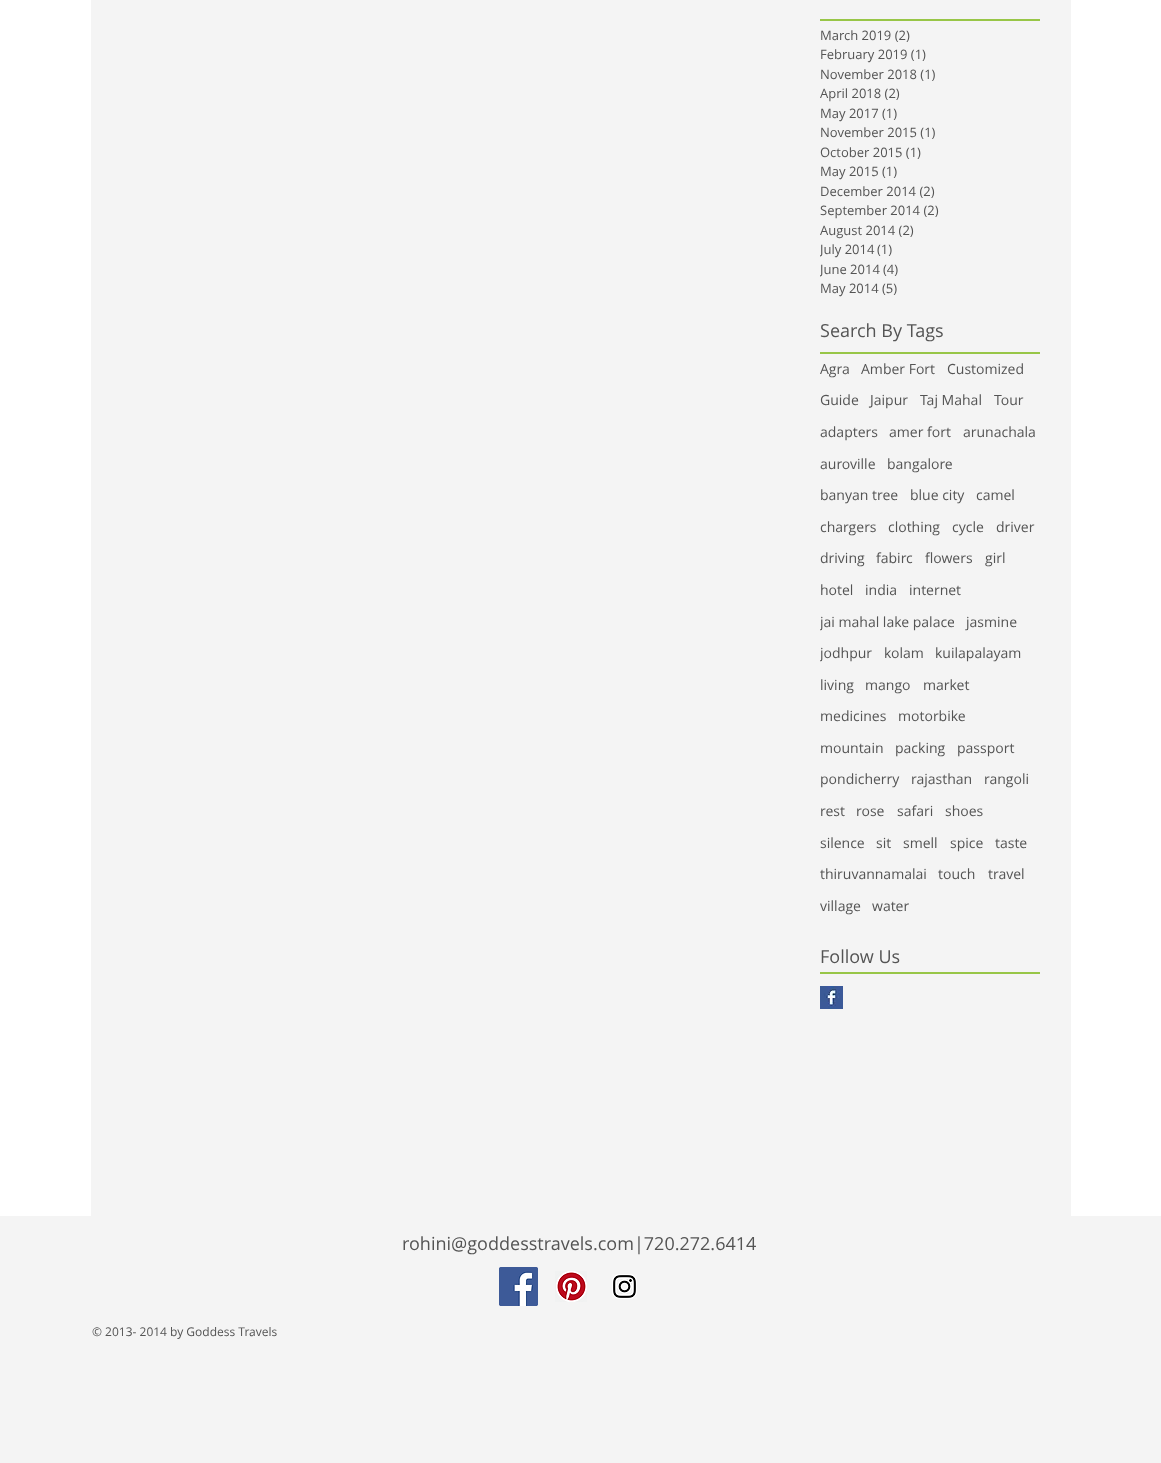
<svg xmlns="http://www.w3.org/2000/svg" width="1161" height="1463">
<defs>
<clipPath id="clip1"><rect x="820" y="240" width="72" height="20"/></clipPath>
<clipPath id="clip2"><rect x="820" y="260" width="78" height="19"/></clipPath>
<clipPath id="clip3"><rect x="820" y="612" width="134" height="19"/></clipPath>
<clipPath id="clip4"><rect x="820" y="643" width="52" height="20"/></clipPath>
</defs>
<rect width="100%" height="100%" fill="#fff"/>
<rect x="91" width="980" height="1216" fill="#f4f4f4"/>
<rect x="820" y="19" width="220" height="2" fill="#98c647"/>
<text x="820" y="40" style="font-family:Open Sans;font-size:13px;fill:#545454">March 2019 (2)</text>
<text x="820" y="59" style="font-family:Open Sans;font-size:13px;fill:#545454">February 2019 (1)</text>
<text x="820" y="79" style="font-family:Open Sans;font-size:13px;fill:#545454">November 2018 (1)</text>
<text x="820" y="98" style="font-family:Open Sans;font-size:13px;fill:#545454">April 2018 (2)</text>
<text x="820" y="118" style="font-family:Open Sans;font-size:13px;fill:#545454">May 2017 (1)</text>
<text x="820" y="137" style="font-family:Open Sans;font-size:13px;fill:#545454">November 2015 (1)</text>
<text x="820" y="157" style="font-family:Open Sans;font-size:13px;fill:#545454">October 2015 (1)</text>
<text x="820" y="176" style="font-family:Open Sans;font-size:13px;fill:#545454">May 2015 (1)</text>
<text x="820" y="196" style="font-family:Open Sans;font-size:13px;fill:#545454">December 2014 (2)</text>
<text x="820" y="215" style="font-family:Open Sans;font-size:13px;fill:#545454">September 2014 (2)</text>
<text x="820" y="235" style="font-family:Open Sans;font-size:13px;fill:#545454">August 2014 (2)</text>
<g clip-path="url(#clip1)">
<text x="820" y="254" style="font-family:Open Sans;font-size:13px;fill:#545454">July 2014</text>
</g>
<text x="877" y="254" style="font-family:Open Sans;font-size:13px;fill:#545454">(1)</text>
<g clip-path="url(#clip2)">
<text x="820" y="274" style="font-family:Open Sans;font-size:13px;fill:#545454">June 2014</text>
</g>
<text x="883" y="274" style="font-family:Open Sans;font-size:13px;fill:#545454">(4)</text>
<text x="820" y="293" style="font-family:Open Sans;font-size:13px;fill:#545454">May 2014 (5)</text>
<text x="820" y="337" style="font-family:Open Sans;font-size:18px;fill:#545454">Search By Tags</text>
<rect x="820" y="352" width="220" height="2" fill="#98c647"/>
<text x="820" y="374" style="font-family:Open Sans;font-size:14px;fill:#545454">Agra</text>
<text x="861" y="374" style="font-family:Open Sans;font-size:14px;fill:#545454">Amber Fort</text>
<text x="947" y="374" style="font-family:Open Sans;font-size:14px;fill:#545454">Customized</text>
<text x="820" y="405" style="font-family:Open Sans;font-size:14px;fill:#545454">Guide</text>
<text x="870" y="405" style="font-family:Open Sans;font-size:14px;fill:#545454">Jaipur</text>
<text x="920" y="405" style="font-family:Open Sans;font-size:14px;fill:#545454">Taj Mahal</text>
<text x="994" y="405" style="font-family:Open Sans;font-size:14px;fill:#545454">Tour</text>
<text x="820" y="437" style="font-family:Open Sans;font-size:14px;fill:#545454">adapters</text>
<text x="889" y="437" style="font-family:Open Sans;font-size:14px;fill:#545454">amer fort</text>
<text x="963" y="437" style="font-family:Open Sans;font-size:14px;fill:#545454">arunachala</text>
<text x="820" y="469" style="font-family:Open Sans;font-size:14px;fill:#545454">auroville</text>
<text x="887" y="469" style="font-family:Open Sans;font-size:14px;fill:#545454">bangalore</text>
<text x="820" y="500" style="font-family:Open Sans;font-size:14px;fill:#545454">banyan tree</text>
<text x="910" y="500" style="font-family:Open Sans;font-size:14px;fill:#545454">blue city</text>
<text x="976" y="500" style="font-family:Open Sans;font-size:14px;fill:#545454">camel</text>
<text x="820" y="532" style="font-family:Open Sans;font-size:14px;fill:#545454">chargers</text>
<text x="888" y="532" style="font-family:Open Sans;font-size:14px;fill:#545454">clothing</text>
<text x="952" y="532" style="font-family:Open Sans;font-size:14px;fill:#545454">cycle</text>
<text x="996" y="532" style="font-family:Open Sans;font-size:14px;fill:#545454">driver</text>
<text x="820" y="563" style="font-family:Open Sans;font-size:14px;fill:#545454">driving</text>
<text x="876" y="563" style="font-family:Open Sans;font-size:14px;fill:#545454">fabirc</text>
<text x="925" y="563" style="font-family:Open Sans;font-size:14px;fill:#545454">flowers</text>
<text x="985" y="563" style="font-family:Open Sans;font-size:14px;fill:#545454">girl</text>
<text x="820" y="595" style="font-family:Open Sans;font-size:14px;fill:#545454">hotel</text>
<text x="865" y="595" style="font-family:Open Sans;font-size:14px;fill:#545454">india</text>
<text x="909" y="595" style="font-family:Open Sans;font-size:14px;fill:#545454">internet</text>
<g clip-path="url(#clip3)">
<text x="820" y="627" style="font-family:Open Sans;font-size:14px;fill:#545454">jai mahal lake palace</text>
</g>
<text x="966" y="627" style="font-family:Open Sans;font-size:14px;fill:#545454">jasmine</text>
<g clip-path="url(#clip4)">
<text x="820" y="658" style="font-family:Open Sans;font-size:14px;fill:#545454">jodhpur</text>
</g>
<text x="884" y="658" style="font-family:Open Sans;font-size:14px;fill:#545454">kolam</text>
<text x="935" y="658" style="font-family:Open Sans;font-size:14px;fill:#545454">kuilapalayam</text>
<text x="820" y="690" style="font-family:Open Sans;font-size:14px;fill:#545454">living</text>
<text x="865" y="690" style="font-family:Open Sans;font-size:14px;fill:#545454">mango</text>
<text x="923" y="690" style="font-family:Open Sans;font-size:14px;fill:#545454">market</text>
<text x="820" y="721" style="font-family:Open Sans;font-size:14px;fill:#545454">medicines</text>
<text x="898" y="721" style="font-family:Open Sans;font-size:14px;fill:#545454">motorbike</text>
<text x="820" y="753" style="font-family:Open Sans;font-size:14px;fill:#545454">mountain</text>
<text x="895" y="753" style="font-family:Open Sans;font-size:14px;fill:#545454">packing</text>
<text x="957" y="753" style="font-family:Open Sans;font-size:14px;fill:#545454">passport</text>
<text x="820" y="784" style="font-family:Open Sans;font-size:14px;fill:#545454">pondicherry</text>
<text x="911" y="784" style="font-family:Open Sans;font-size:14px;fill:#545454">rajasthan</text>
<text x="984" y="784" style="font-family:Open Sans;font-size:14px;fill:#545454">rangoli</text>
<text x="820" y="816" style="font-family:Open Sans;font-size:14px;fill:#545454">rest</text>
<text x="856" y="816" style="font-family:Open Sans;font-size:14px;fill:#545454">rose</text>
<text x="897" y="816" style="font-family:Open Sans;font-size:14px;fill:#545454">safari</text>
<text x="945" y="816" style="font-family:Open Sans;font-size:14px;fill:#545454">shoes</text>
<text x="820" y="848" style="font-family:Open Sans;font-size:14px;fill:#545454">silence</text>
<text x="876" y="848" style="font-family:Open Sans;font-size:14px;fill:#545454">sit</text>
<text x="903" y="848" style="font-family:Open Sans;font-size:14px;fill:#545454">smell</text>
<text x="950" y="848" style="font-family:Open Sans;font-size:14px;fill:#545454">spice</text>
<text x="995" y="848" style="font-family:Open Sans;font-size:14px;fill:#545454">taste</text>
<text x="820" y="879" style="font-family:Open Sans;font-size:14px;fill:#545454">thiruvannamalai</text>
<text x="938" y="879" style="font-family:Open Sans;font-size:14px;fill:#545454">touch</text>
<text x="988" y="879" style="font-family:Open Sans;font-size:14px;fill:#545454">travel</text>
<text x="820" y="911" style="font-family:Open Sans;font-size:14px;fill:#545454">village</text>
<text x="872" y="911" style="font-family:Open Sans;font-size:14px;fill:#545454">water</text>
<text x="820" y="963" style="font-family:Open Sans;font-size:18px;fill:#545454">Follow Us</text>
<rect x="820" y="972" width="220" height="2" fill="#98c647"/>
<image x="820" y="986" width="23" height="23" href="media/1.png"/>
<rect y="1216" width="1161" height="247" fill="#f4f4f4"/>
<text x="402" y="1250" style="font-family:Open Sans;font-size:18px;fill:#545454">rohini@goddesstravels.com|720.272.6414</text>
<image x="499" y="1267" width="39" height="39" href="media/2.png"/>
<image x="555" y="1271" width="32" height="31" href="media/3.png"/>
<image x="612" y="1274" width="25" height="25" href="media/4.png"/>
<text x="92" y="1336" style="font-family:Open Sans;font-size:12px;fill:#545454">© 2013- 2014 by Goddess Travels</text>
</svg>
